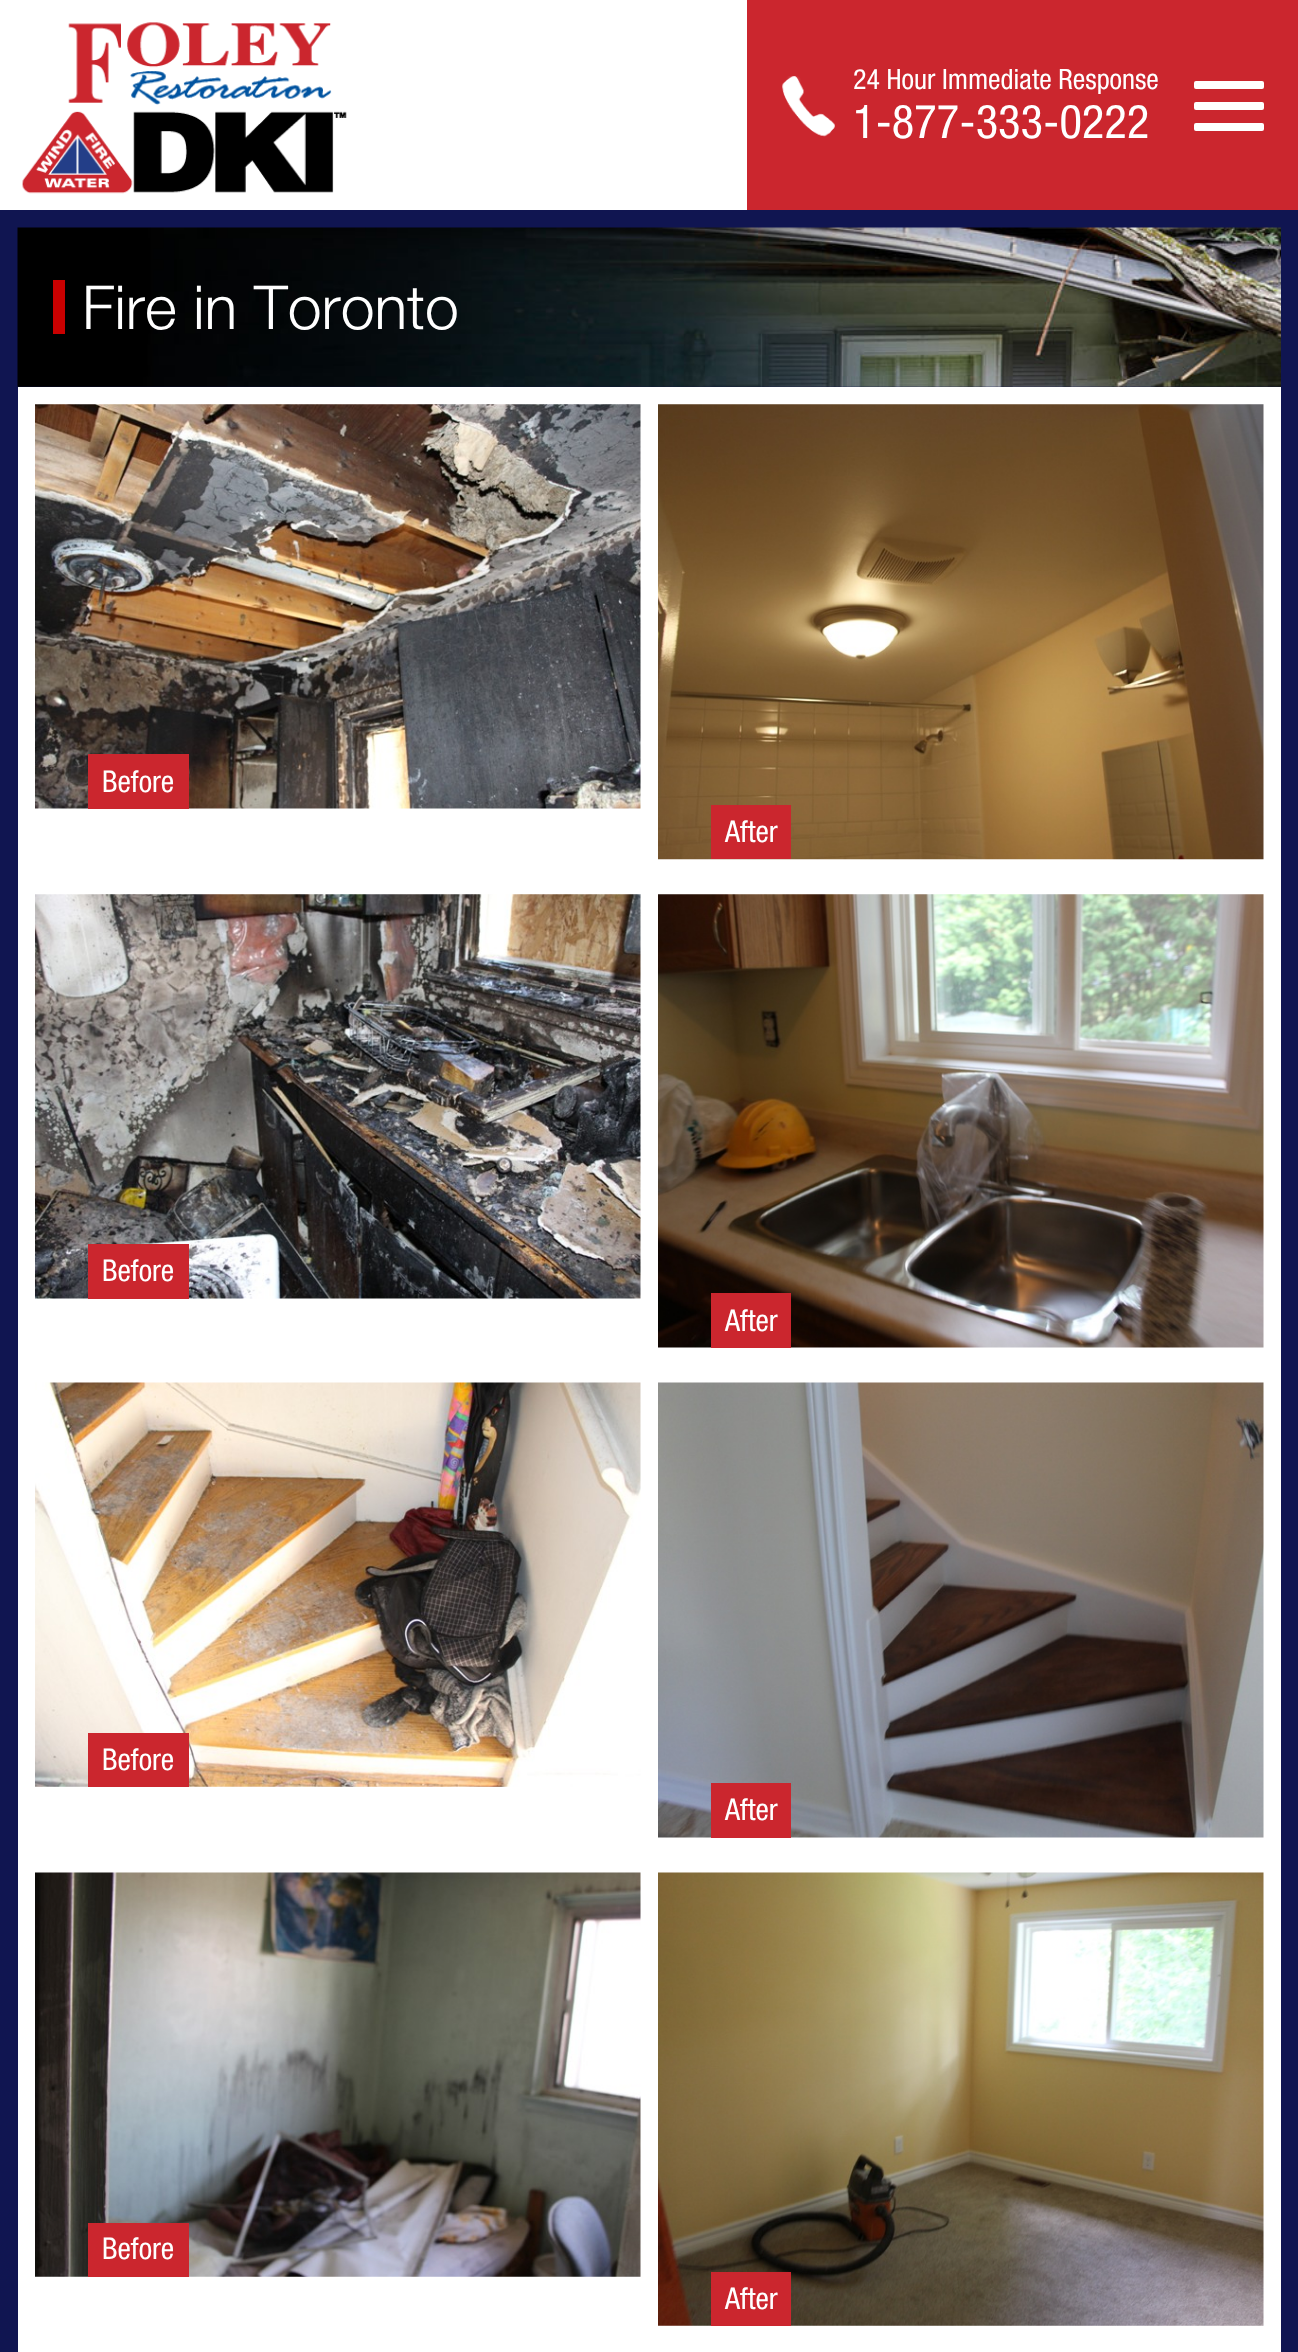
<svg xmlns="http://www.w3.org/2000/svg" width="1298" height="2352">
<rect width="100%" height="100%" fill="#101551"/>
<rect width="747" height="210" fill="#fff"/>
<image x="22" y="22" width="325" height="172" href="media/1.png"/>
<rect x="747" width="551" height="210" fill="#cb262e"/>
<image x="782" y="76" width="53" height="61" href="media/2.png"/>
<text x="853" y="89" style="font-family:Helvetica Neue;font-size:28px;fill:#fff">24 Hour Immediate Response</text>
<text x="853" y="138" style="font-family:Helvetica Neue;font-size:46.75px;fill:#fff">1-877-333-0222</text>
<rect x="1194" y="81" width="70" height="8" rx="2" fill="#fff"/>
<rect x="1194" y="102" width="70" height="8" rx="2" fill="#fff"/>
<rect x="1194" y="123" width="70" height="8" rx="2" fill="#fff"/>
<image x="17" y="227" width="1264" height="160" href="media/3.png"/>
<rect x="53" y="280" width="12" height="54" fill="#c90000"/>
<text x="82" y="329" style="font-family:Helvetica Neue;font-size:60.75px;font-weight:300;fill:#fff">Fire in Toronto</text>
<rect x="18" y="387" width="1263" height="1965" fill="#fff"/>
<image x="35" y="404" width="606" height="405" href="media/4.png"/>
<rect x="88" y="754" width="101" height="55" fill="#cb262e"/>
<text x="102" y="792" style="font-family:Helvetica Neue;font-size:30px;fill:#fff">Before</text>
<image x="658" y="404" width="606" height="456" href="media/5.png"/>
<rect x="711" y="805" width="80" height="54" fill="#cb262e"/>
<text x="725" y="842" style="font-family:Helvetica Neue;font-size:30px;fill:#fff">After</text>
<image x="35" y="894" width="606" height="405" href="media/6.png"/>
<rect x="88" y="1244" width="101" height="55" fill="#cb262e"/>
<text x="102" y="1281" style="font-family:Helvetica Neue;font-size:30px;fill:#fff">Before</text>
<image x="658" y="894" width="606" height="454" href="media/7.png"/>
<rect x="711" y="1293" width="80" height="55" fill="#cb262e"/>
<text x="725" y="1331" style="font-family:Helvetica Neue;font-size:30px;fill:#fff">After</text>
<image x="35" y="1382" width="606" height="405" href="media/8.png"/>
<rect x="88" y="1733" width="101" height="54" fill="#cb262e"/>
<text x="102" y="1770" style="font-family:Helvetica Neue;font-size:30px;fill:#fff">Before</text>
<image x="658" y="1382" width="606" height="456" href="media/9.png"/>
<rect x="711" y="1783" width="80" height="55" fill="#cb262e"/>
<text x="725" y="1820" style="font-family:Helvetica Neue;font-size:30px;fill:#fff">After</text>
<image x="35" y="1872" width="606" height="405" href="media/10.png"/>
<rect x="88" y="2223" width="101" height="54" fill="#cb262e"/>
<text x="102" y="2259" style="font-family:Helvetica Neue;font-size:30px;fill:#fff">Before</text>
<image x="658" y="1872" width="606" height="454" href="media/11.png"/>
<rect x="711" y="2272" width="80" height="54" fill="#cb262e"/>
<text x="725" y="2309" style="font-family:Helvetica Neue;font-size:30px;fill:#fff">After</text>
</svg>
